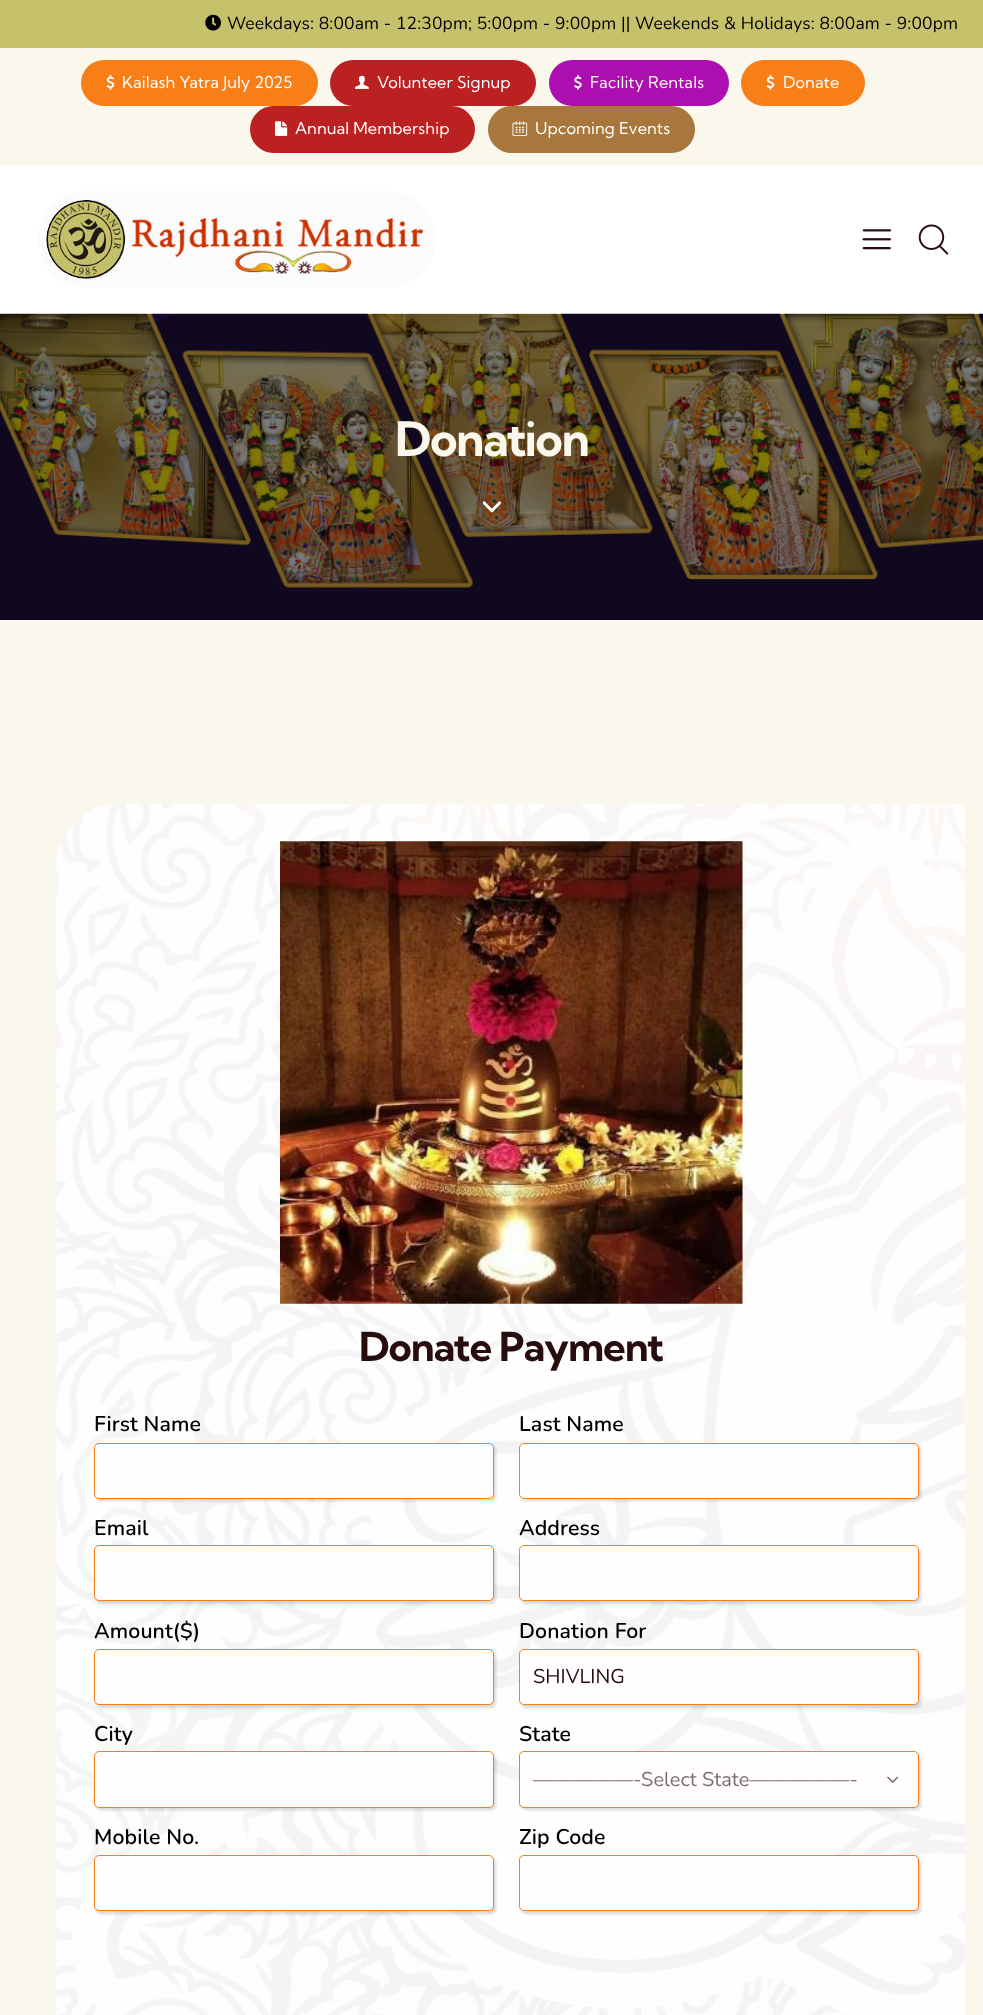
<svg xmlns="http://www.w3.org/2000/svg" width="983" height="2015">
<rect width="100%" height="100%" fill="#faf7ed"/>
<rect width="983" height="48" fill="#c6c26b"/>
<image x="205" y="14" width="16" height="17" href="media/1.png"/>
<text x="227" y="29" style="font-family:Nunito;font-size:17.5px;letter-spacing:0.12px;fill:#000">Weekdays: 8:00am - 12:30pm; 5:00pm - 9:00pm || Weekends &amp; Holidays: 8:00am - 9:00pm</text>
<rect x="81" y="60" width="237" height="46" rx="23" fill="#f87f18"/>
<image x="106" y="75" width="9" height="15" href="media/2.png"/>
<text x="122" y="88" style="font-family:Kumbh Sans;font-size:16.25px;letter-spacing:0.12px;fill:#fff">Kailash Yatra July 2025</text>
<rect x="330" y="60" width="206" height="46" rx="23" fill="#bc2122"/>
<image x="355" y="75" width="14" height="14" href="media/3.png"/>
<text x="377" y="88" style="font-family:Kumbh Sans;font-size:16.25px;letter-spacing:0.12px;fill:#fff">Volunteer Signup</text>
<rect x="549" y="60" width="180" height="46" rx="23" fill="#ac0eb0"/>
<image x="574" y="75" width="8" height="15" href="media/4.png"/>
<text x="590" y="88" style="font-family:Kumbh Sans;font-size:16.25px;letter-spacing:0.12px;fill:#faf7ed">Facility Rentals</text>
<rect x="741" y="60" width="124" height="46" rx="23" fill="#f87f18"/>
<image x="766" y="75" width="9" height="15" href="media/2.png"/>
<text x="783" y="88" style="font-family:Kumbh Sans;font-size:16.25px;letter-spacing:0.12px;fill:#fff">Donate</text>
<rect x="250" y="106" width="225" height="47" rx="23.5" fill="#bc2122"/>
<image x="275" y="121" width="13" height="15" href="media/5.png"/>
<text x="295" y="134" style="font-family:Kumbh Sans;font-size:16.25px;letter-spacing:0.12px;fill:#fff">Annual Membership</text>
<rect x="488" y="106" width="207" height="47" rx="23.5" fill="#a7773e"/>
<image x="512" y="121" width="16" height="15" href="media/6.png"/>
<text x="535" y="134" style="font-family:Kumbh Sans;font-size:16.25px;letter-spacing:0.12px;fill:#fff">Upcoming Events</text>
<rect y="165" width="983" height="149" fill="#fff"/>
<rect x="38" y="191" width="398" height="97" rx="48.5" fill="#fbfbfb"/>
<image x="46" y="200" width="378" height="79" href="media/7.png"/>
<image x="862" y="229" width="30" height="21" href="media/8.png"/>
<image x="918" y="224" width="31" height="31" href="media/9.png"/>
<image x="0" y="313" width="983" height="307" href="media/10.png"/>
<text x="395" y="456" style="font-family:Kumbh Sans;font-size:47.5px;font-weight:bold;letter-spacing:-1.5px;fill:#faf7ed">Donation</text>
<image x="483" y="501" width="18" height="12" href="media/11.png"/>
<image x="56" y="804" width="909" height="1211" href="media/12.png"/>
<image x="280" y="841" width="463" height="463" href="media/13.png"/>
<text x="359" y="1361" style="font-family:Kumbh Sans;font-size:40px;font-weight:bold;letter-spacing:-1.1px;fill:#270d0d">Donate Payment</text>
<text x="94" y="1431" style="font-family:Nunito;font-size:21.25px;font-weight:600;letter-spacing:0.12px;fill:#000">First Name</text>
<rect x="96" y="1445" width="400" height="56" rx="5" fill="#00000026" filter="blur(1.5px)"/>
<rect x="94.5" y="1443.5" width="399" height="55" rx="4.5" fill="#fffdfe" stroke="#f87f18"/>
<text x="519" y="1431" style="font-family:Nunito;font-size:21.25px;font-weight:600;letter-spacing:0.12px;fill:#000">Last Name</text>
<rect x="521" y="1445" width="400" height="56" rx="5" fill="#00000026" filter="blur(1.5px)"/>
<rect x="519.5" y="1443.5" width="399" height="55" rx="4.5" fill="#fffdfe" stroke="#f87f18"/>
<text x="94" y="1535" style="font-family:Nunito;font-size:21.25px;font-weight:600;letter-spacing:0.12px;fill:#000">Email</text>
<rect x="96" y="1548" width="400" height="56" rx="5" fill="#00000026" filter="blur(1.5px)"/>
<rect x="94.5" y="1545.5" width="399" height="55" rx="4.5" fill="#fffdfe" stroke="#f87f18"/>
<text x="519" y="1535" style="font-family:Nunito;font-size:21.25px;font-weight:600;letter-spacing:0.12px;fill:#000">Address</text>
<rect x="521" y="1548" width="400" height="56" rx="5" fill="#00000026" filter="blur(1.5px)"/>
<rect x="519.5" y="1545.5" width="399" height="55" rx="4.5" fill="#fffdfe" stroke="#f87f18"/>
<text x="94" y="1638" style="font-family:Nunito;font-size:21.25px;font-weight:600;letter-spacing:0.12px;fill:#000">Amount($)</text>
<rect x="96" y="1651" width="400" height="57" rx="5" fill="#00000026" filter="blur(1.5px)"/>
<rect x="94.5" y="1649.5" width="399" height="55" rx="4.5" fill="#fffdfe" stroke="#f87f18"/>
<text x="519" y="1638" style="font-family:Nunito;font-size:21.25px;font-weight:600;letter-spacing:0.12px;fill:#000">Donation For</text>
<rect x="521" y="1651" width="400" height="57" rx="5" fill="#00000026" filter="blur(1.5px)"/>
<rect x="519.5" y="1649.5" width="399" height="55" rx="4.5" fill="#fffdfe" stroke="#f87f18"/>
<text x="533" y="1683" style="font-family:Nunito;font-size:20px;fill:#270d0d">SHIVLING</text>
<text x="94" y="1741" style="font-family:Nunito;font-size:21.25px;font-weight:600;letter-spacing:0.12px;fill:#000">City</text>
<rect x="96" y="1754" width="400" height="56" rx="5" fill="#00000026" filter="blur(1.5px)"/>
<rect x="94.5" y="1751.5" width="399" height="56" rx="4.5" fill="#fffdfe" stroke="#f87f18"/>
<text x="519" y="1741" style="font-family:Nunito;font-size:21.25px;font-weight:600;letter-spacing:0.12px;fill:#000">State</text>
<rect x="521" y="1754" width="400" height="56" rx="5" fill="#00000026" filter="blur(1.5px)"/>
<rect x="519.5" y="1751.5" width="399" height="56" rx="4.5" fill="#fffdfe" stroke="#f87f18"/>
<text x="533" y="1786" style="font-family:Nunito;font-size:20px;fill:#7d6d6d">—————-Select State—————-</text>
<image x="887" y="1776" width="12" height="7" href="media/14.png"/>
<text x="94" y="1844" style="font-family:Nunito;font-size:21.25px;font-weight:600;letter-spacing:0.12px;fill:#000">Mobile No.</text>
<rect x="96" y="1858" width="400" height="56" rx="5" fill="#00000026" filter="blur(1.5px)"/>
<rect x="94.5" y="1855.5" width="399" height="55" rx="4.5" fill="#fffdfe" stroke="#f87f18"/>
<text x="519" y="1844" style="font-family:Nunito;font-size:21.25px;font-weight:600;letter-spacing:0.12px;fill:#000">Zip Code</text>
<rect x="521" y="1858" width="400" height="56" rx="5" fill="#00000026" filter="blur(1.5px)"/>
<rect x="519.5" y="1855.5" width="399" height="55" rx="4.5" fill="#fffdfe" stroke="#f87f18"/>
</svg>
